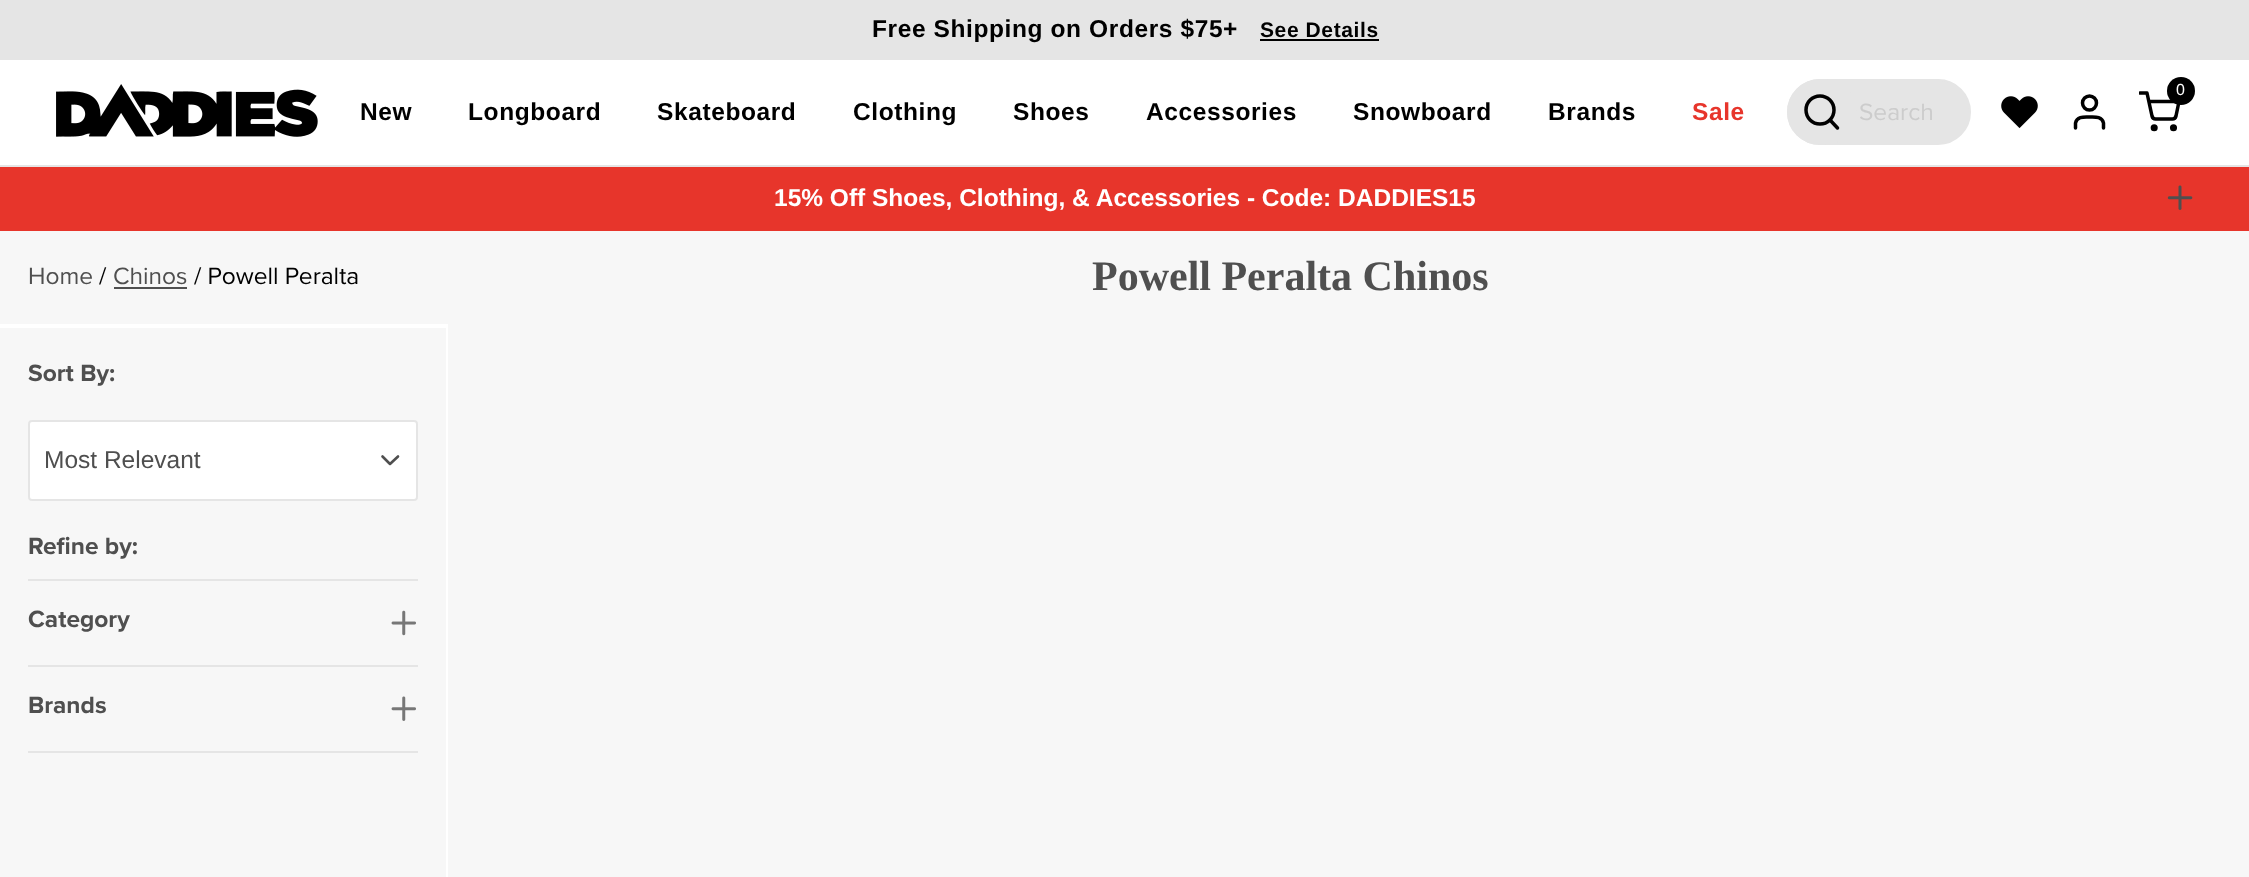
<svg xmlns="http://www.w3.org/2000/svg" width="2249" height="877">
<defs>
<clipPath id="clip1"><rect x="2139" y="91" width="42" height="42"/></clipPath>
</defs>
<rect width="100%" height="100%" fill="#fff"/>
<rect width="2249" height="60" fill="#e5e5e5"/>
<text x="872" y="37" style="font-family:Liberation Sans;font-size:24.5px;font-weight:bold;letter-spacing:0.6px;fill:#000">Free Shipping on Orders $75+</text>
<text x="1260" y="37" style="font-family:Liberation Sans;font-size:21px;font-weight:bold;letter-spacing:0.6px;fill:#000">See Details</text>
<rect x="1260" y="39" width="119" height="2" fill="#000"/>
<rect y="165" width="2249" height="2" fill="#e5e5e5"/>
<image x="56" y="84" width="262" height="53" href="media/1.png"/>
<text x="360" y="120" style="font-family:Liberation Sans;font-size:24.5px;font-weight:bold;letter-spacing:0.6px;fill:#000">New</text>
<text x="468" y="120" style="font-family:Liberation Sans;font-size:24.5px;font-weight:bold;letter-spacing:0.6px;fill:#000">Longboard</text>
<text x="657" y="120" style="font-family:Liberation Sans;font-size:24.5px;font-weight:bold;letter-spacing:0.6px;fill:#000">Skateboard</text>
<text x="853" y="120" style="font-family:Liberation Sans;font-size:24.5px;font-weight:bold;letter-spacing:0.6px;fill:#000">Clothing</text>
<text x="1013" y="120" style="font-family:Liberation Sans;font-size:24.5px;font-weight:bold;letter-spacing:0.6px;fill:#000">Shoes</text>
<text x="1146" y="120" style="font-family:Liberation Sans;font-size:24.5px;font-weight:bold;letter-spacing:0.6px;fill:#000">Accessories</text>
<text x="1353" y="120" style="font-family:Liberation Sans;font-size:24.5px;font-weight:bold;letter-spacing:0.6px;fill:#000">Snowboard</text>
<text x="1548" y="120" style="font-family:Liberation Sans;font-size:24.5px;font-weight:bold;letter-spacing:0.6px;fill:#000">Brands</text>
<text x="1692" y="120" style="font-family:Liberation Sans;font-size:24.5px;font-weight:bold;letter-spacing:0.6px;fill:#e7352b">Sale</text>
<g clip-path="url(#clip1)">
<path d="M2140 93h7l5 23c.5 2 1.5 3 3.5 3h17c1.5 0 3-1 3.5-3l3-14.5h-30" fill="none" stroke="#000" stroke-width="3.5" stroke-linecap="round" stroke-linejoin="round"/>
</g>
<circle cx="2181" cy="91" r="14" fill="#000"/>
<text x="2176" y="95" style="font-family:Liberation Sans;font-size:16px;fill:#fff">0</text>
<circle cx="2154.2" cy="127.8" r="1.8" fill="none" stroke="#000" stroke-width="3.5"/>
<circle cx="2173.5" cy="127.8" r="1.8" fill="none" stroke="#000" stroke-width="3.5"/>
<rect x="1788" y="80" width="182" height="64" rx="32" fill="#e5e5e5" stroke="#e5e5e5" stroke-width="2"/>
<rect x="1787" y="79" width="70" height="66" rx="33" fill="#e5e5e5"/>
<circle cx="1820" cy="110" r="14" fill="none" stroke="#000" stroke-width="3.5"/>
<path d="M1837.5 128l-7.5-8" fill="none" stroke="#000" stroke-width="3.5" stroke-linecap="round" stroke-linejoin="round"/>
<text x="1859" y="120" style="font-family:Proxima Nova;font-size:24.5px;fill:#ccc">Search</text>
<image x="2001" y="96" width="37" height="33" href="media/2.png"/>
<path d="M2103.5 128v-5c-1.5-7-9-6-14-6c-5 0-12.5-1-14 6v5" fill="none" stroke="#000" stroke-width="3.5" stroke-linecap="round" stroke-linejoin="round"/>
<circle cx="2089.5" cy="103" r="7" fill="none" stroke="#000" stroke-width="3.5"/>
<rect y="167" width="2249" height="64" fill="#e7352b"/>
<text x="774" y="206" style="font-family:Liberation Sans;font-size:24.5px;font-weight:bold;fill:#fff">15% Off Shoes, Clothing, &amp; Accessories - Code: DADDIES15</text>
<image x="2167" y="185" width="26" height="25" href="media/3.png"/>
<rect y="231" width="2249" height="646" fill="#f7f7f7"/>
<text x="28" y="284" style="font-family:Proxima Nova;font-size:24.5px;fill:#4f4f4f">Home</text>
<text x="99" y="284" style="font-family:Proxima Nova;font-size:24.5px;fill:#000">/</text>
<text x="113" y="284" style="font-family:Proxima Nova;font-size:24.5px;fill:#4f4f4f">Chinos</text>
<rect x="114" y="287" width="73" height="2" fill="#4f4f4f"/>
<text x="194" y="284" style="font-family:Proxima Nova;font-size:24.5px;fill:#000">/ Powell Peralta</text>
<text x="1092" y="290" style="font-family:Liberation Serif;font-size:42px;font-weight:bold;fill:#4f4f4f">Powell Peralta Chinos</text>
<rect x="446" y="324" width="2" height="553" fill="#fff"/>
<rect y="324" width="446" height="4" fill="#fff"/>
<text x="28" y="381" style="font-family:Proxima Nova;font-size:24.5px;font-weight:bold;fill:#4f4f4f">Sort By:</text>
<rect x="28" y="420" width="390" height="81" rx="4" fill="#fff"/>
<path d="M382.5 456.5l7.5 7.5l8-7.5" fill="none" stroke="#4f4f4f" stroke-width="2.6" stroke-linecap="round" stroke-linejoin="round"/>
<rect x="29" y="421" width="388" height="79" rx="3" fill="none" stroke="#0000001a" stroke-width="2"/>
<text x="44" y="468" style="font-family:Liberation Sans;font-size:24.5px;fill:#4f4f4f">Most Relevant</text>
<rect x="28" y="579" width="390" height="2" fill="#e5e5e5"/>
<text x="28" y="554" style="font-family:Proxima Nova;font-size:24.5px;font-weight:bold;fill:#4f4f4f">Refine by:</text>
<rect x="28" y="665" width="390" height="2" fill="#e5e5e5"/>
<text x="28" y="627" style="font-family:Proxima Nova;font-size:24.5px;font-weight:bold;fill:#4f4f4f">Category</text>
<image x="391" y="610" width="25" height="26" href="media/4.png"/>
<rect x="28" y="751" width="390" height="2" fill="#e5e5e5"/>
<text x="28" y="713" style="font-family:Proxima Nova;font-size:24.5px;font-weight:bold;fill:#4f4f4f">Brands</text>
<image x="391" y="696" width="25" height="25" href="media/5.png"/>
</svg>
